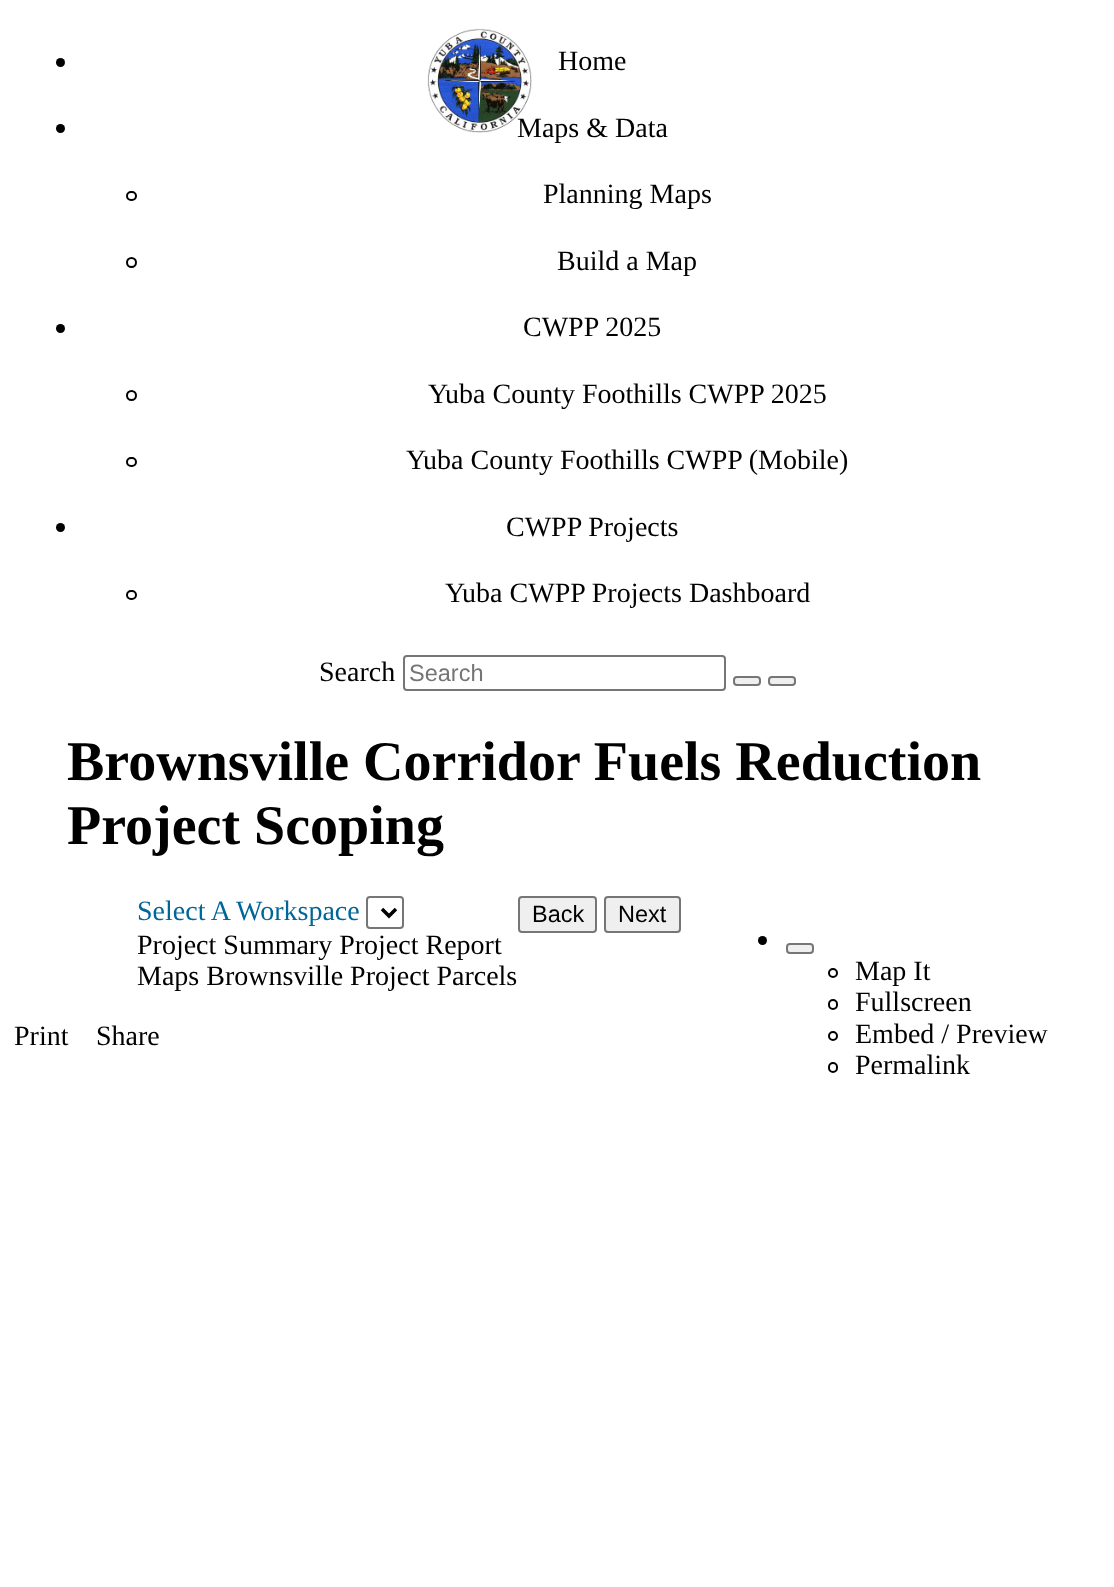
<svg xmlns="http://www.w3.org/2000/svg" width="1114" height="1587">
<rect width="100%" height="100%" fill="#fff"/>
<text x="517" y="137" style="font-family:Liberation Serif;font-size:28px;fill:#000">Maps &amp; Data</text>
<image x="427" y="28" width="105" height="105" href="media/1.png"/>
<circle cx="60.5" cy="62.5" r="4.5" fill="#000"/>
<text x="558" y="70" style="font-family:Liberation Serif;font-size:28px;fill:#000">Home</text>
<circle cx="60.5" cy="128.5" r="4.5" fill="#000"/>
<rect x="127" y="192" width="9" height="8" rx="4" fill="none" stroke="#000" stroke-width="2"/>
<text x="543" y="203" style="font-family:Liberation Serif;font-size:28px;fill:#000">Planning Maps</text>
<circle cx="131.5" cy="262.5" r="4.5" fill="none" stroke="#000" stroke-width="2"/>
<text x="557" y="270" style="font-family:Liberation Serif;font-size:28px;fill:#000">Build a Map</text>
<circle cx="60.5" cy="328.5" r="4.5" fill="#000"/>
<text x="523" y="336" style="font-family:Liberation Serif;font-size:28px;fill:#000">CWPP 2025</text>
<circle cx="131.5" cy="395.5" r="4.5" fill="none" stroke="#000" stroke-width="2"/>
<text x="428" y="403" style="font-family:Liberation Serif;font-size:28px;fill:#000">Yuba County Foothills CWPP 2025</text>
<rect x="127" y="458" width="9" height="8" rx="4" fill="none" stroke="#000" stroke-width="2"/>
<text x="406" y="469" style="font-family:Liberation Serif;font-size:28px;fill:#000">Yuba County Foothills CWPP (Mobile)</text>
<circle cx="60.5" cy="527.5" r="4.5" fill="#000"/>
<text x="506" y="536" style="font-family:Liberation Serif;font-size:28px;fill:#000">CWPP Projects</text>
<rect x="127" y="591" width="9" height="8" rx="4" fill="none" stroke="#000" stroke-width="2"/>
<text x="445" y="602" style="font-family:Liberation Serif;font-size:28px;fill:#000">Yuba CWPP Projects Dashboard</text>
<text x="319" y="681" style="font-family:Liberation Serif;font-size:28px;fill:#000">Search</text>
<rect x="404" y="656" width="321" height="34" rx="3" fill="none" stroke="#767676" stroke-width="2"/>
<text x="409" y="681" style="font-family:Liberation Sans;font-size:23.5px;fill:#757575">Search</text>
<rect x="734" y="677" width="26" height="8" rx="3" fill="#efefef" stroke="#767676" stroke-width="2"/>
<rect x="769" y="677" width="26" height="8" rx="3" fill="#efefef" stroke="#767676" stroke-width="2"/>
<text x="67" y="780" style="font-family:Liberation Serif;font-size:56px;font-weight:bold;fill:#000">Brownsville Corridor Fuels Reduction</text>
<text x="67" y="844" style="font-family:Liberation Serif;font-size:56px;font-weight:bold;fill:#000">Project Scoping</text>
<rect x="519" y="897" width="77" height="35" rx="3" fill="#efefef" stroke="#767676" stroke-width="2"/>
<text x="532" y="922" style="font-family:Liberation Sans;font-size:23.5px;fill:#000">Back</text>
<rect x="605" y="897" width="75" height="35" rx="3" fill="#efefef" stroke="#767676" stroke-width="2"/>
<text x="618" y="922" style="font-family:Liberation Sans;font-size:23.5px;fill:#000">Next</text>
<circle cx="762.5" cy="940.5" r="4.5" fill="#000"/>
<rect x="787" y="944" width="26" height="9" rx="3" fill="#efefef" stroke="#767676" stroke-width="2"/>
<circle cx="833" cy="973" r="4" fill="none" stroke="#000" stroke-width="2"/>
<text x="855" y="980" style="font-family:Liberation Serif;font-size:28px;fill:#000">Map It</text>
<rect x="829" y="1000" width="8" height="9" rx="4" fill="none" stroke="#000" stroke-width="2"/>
<text x="855" y="1011" style="font-family:Liberation Serif;font-size:28px;fill:#000">Fullscreen</text>
<circle cx="833" cy="1036" r="4" fill="none" stroke="#000" stroke-width="2"/>
<text x="855" y="1043" style="font-family:Liberation Serif;font-size:28px;fill:#000">Embed / Preview</text>
<rect x="829" y="1063" width="8" height="9" rx="4" fill="none" stroke="#000" stroke-width="2"/>
<text x="855" y="1074" style="font-family:Liberation Serif;font-size:28px;fill:#000">Permalink</text>
<text x="137" y="920" style="font-family:Liberation Serif;font-size:28px;fill:#069">Select A Workspace</text>
<rect x="367" y="897" width="36" height="31" rx="3" fill="none" stroke="#767676" stroke-width="2"/>
<path d="M382 909l7 7l7-7" fill="none" stroke="#000" stroke-width="3.5"/>
<text x="137" y="954" style="font-family:Liberation Serif;font-size:28px;fill:#000">Project Summary Project Report</text>
<text x="137" y="985" style="font-family:Liberation Serif;font-size:28px;fill:#000">Maps Brownsville Project Parcels</text>
<text x="14" y="1045" style="font-family:Liberation Serif;font-size:28px;fill:#000">Print</text>
<text x="96" y="1045" style="font-family:Liberation Serif;font-size:28px;fill:#000">Share</text>
</svg>
